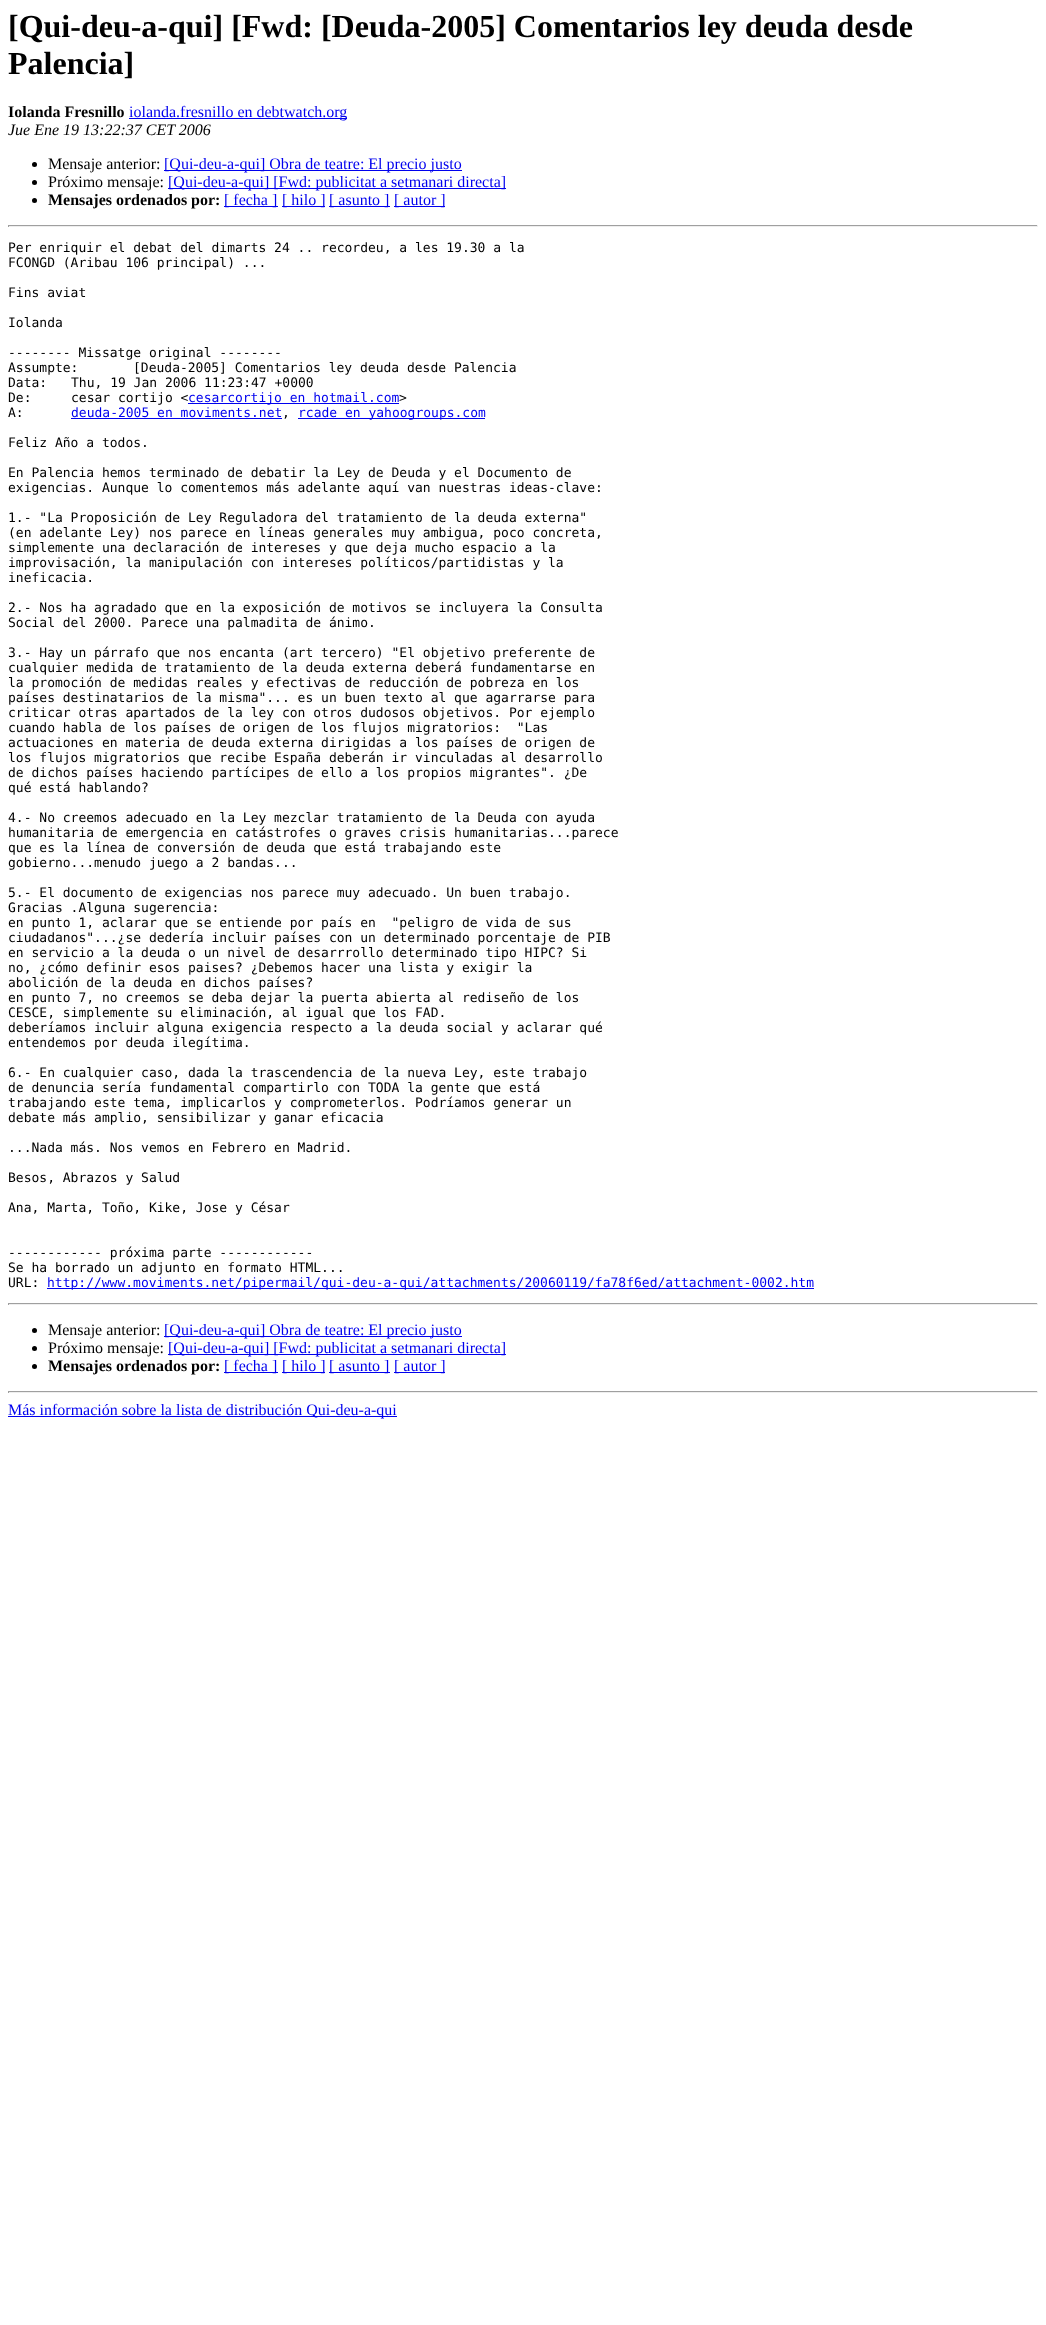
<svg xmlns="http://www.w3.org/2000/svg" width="1046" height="2325">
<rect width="100%" height="100%" fill="#fff"/>
<text x="8" y="37" style="font-family:Liberation Serif;font-size:32px;font-weight:bold;fill:#000">[Qui-deu-a-qui] [Fwd: [Deuda-2005] Comentarios ley deuda desde</text>
<text x="8" y="74" style="font-family:Liberation Serif;font-size:32px;font-weight:bold;fill:#000">Palencia]</text>
<text x="8" y="117" style="font-family:Liberation Serif;font-size:16px;font-weight:bold;fill:#000">Iolanda Fresnillo</text>
<rect x="129" y="118" width="218" height="1" fill="#00e"/>
<text x="129" y="117" style="font-family:Liberation Serif;font-size:16px;fill:#00e">iolanda.fresnillo en debtwatch.org</text>
<text x="8" y="135" style="font-family:Liberation Serif;font-size:16px;font-style:italic;fill:#000">Jue Ene 19 13:22:37 CET 2006</text>
<circle cx="34.5" cy="164.5" r="2.5" fill="#000"/>
<text x="48" y="169" style="font-family:Liberation Serif;font-size:16px;fill:#000">Mensaje anterior:</text>
<rect x="164" y="170" width="298" height="1" fill="#00e"/>
<text x="164" y="169" style="font-family:Liberation Serif;font-size:16px;fill:#00e">[Qui-deu-a-qui] Obra de teatre: El precio justo</text>
<circle cx="34.5" cy="182.5" r="2.5" fill="#000"/>
<text x="48" y="187" style="font-family:Liberation Serif;font-size:16px;fill:#000">Próximo mensaje:</text>
<rect x="168" y="188" width="338" height="1" fill="#00e"/>
<text x="168" y="187" style="font-family:Liberation Serif;font-size:16px;fill:#00e">[Qui-deu-a-qui] [Fwd: publicitat a setmanari directa]</text>
<circle cx="34.5" cy="200.5" r="2.5" fill="#000"/>
<text x="48" y="205" style="font-family:Liberation Serif;font-size:16px;font-weight:bold;fill:#000">Mensajes ordenados por:</text>
<rect x="224" y="206" width="54" height="1" fill="#00e"/>
<text x="224" y="205" style="font-family:Liberation Serif;font-size:16px;fill:#00e">[ fecha ]</text>
<rect x="282" y="206" width="43" height="1" fill="#00e"/>
<text x="282" y="205" style="font-family:Liberation Serif;font-size:16px;fill:#00e">[ hilo ]</text>
<rect x="329" y="206" width="61" height="1" fill="#00e"/>
<text x="329" y="205" style="font-family:Liberation Serif;font-size:16px;fill:#00e">[ asunto ]</text>
<rect x="394" y="206" width="51" height="1" fill="#00e"/>
<text x="394" y="205" style="font-family:Liberation Serif;font-size:16px;fill:#00e">[ autor ]</text>
<rect x="8" y="225" width="1030" height="1" fill="#9f9f9f"/>
<rect x="1037" y="225" width="1" height="2" fill="#eee"/>
<rect x="8" y="226" width="1030" height="1" fill="#eee"/>
<rect x="8" y="225" width="1" height="2" fill="#9f9f9f"/>
<text x="8" y="252" style="font-family:DejaVu Sans Mono;font-size:13px;fill:#000">Per enriquir el debat del dimarts 24 .. recordeu, a les 19.30 a la</text>
<text x="8" y="267" style="font-family:DejaVu Sans Mono;font-size:13px;fill:#000">FCONGD (Aribau 106 principal) ...</text>
<text x="8" y="297" style="font-family:DejaVu Sans Mono;font-size:13px;fill:#000">Fins aviat</text>
<text x="8" y="327" style="font-family:DejaVu Sans Mono;font-size:13px;fill:#000">Iolanda</text>
<text x="8" y="357" style="font-family:DejaVu Sans Mono;font-size:13px;fill:#000">-------- Missatge original --------</text>
<text x="8" y="372" style="font-family:DejaVu Sans Mono;font-size:13px;fill:#000">Assumpte:</text>
<text x="133" y="372" style="font-family:DejaVu Sans Mono;font-size:13px;fill:#000">[Deuda-2005] Comentarios ley deuda desde Palencia</text>
<text x="8" y="387" style="font-family:DejaVu Sans Mono;font-size:13px;fill:#000">Data:</text>
<text x="71" y="387" style="font-family:DejaVu Sans Mono;font-size:13px;fill:#000">Thu, 19 Jan 2006 11:23:47 +0000</text>
<text x="8" y="402" style="font-family:DejaVu Sans Mono;font-size:13px;fill:#000">De:</text>
<text x="71" y="402" style="font-family:DejaVu Sans Mono;font-size:13px;fill:#000">cesar cortijo &lt;</text>
<rect x="188" y="403" width="211" height="1" fill="#00e"/>
<text x="188" y="402" style="font-family:DejaVu Sans Mono;font-size:13px;fill:#00e">cesarcortijo en hotmail.com</text>
<text x="399" y="402" style="font-family:DejaVu Sans Mono;font-size:13px;fill:#000">&gt;</text>
<text x="8" y="417" style="font-family:DejaVu Sans Mono;font-size:13px;fill:#000">A:</text>
<text x="71" y="417" style="font-family:DejaVu Sans Mono;font-size:13px;fill:#00e">deuda-2005 en moviments.net</text>
<rect x="71" y="418" width="211" height="1" fill="#00e"/>
<text x="282" y="417" style="font-family:DejaVu Sans Mono;font-size:13px;fill:#000">,</text>
<rect x="298" y="418" width="187" height="1" fill="#00e"/>
<text x="298" y="417" style="font-family:DejaVu Sans Mono;font-size:13px;fill:#00e">rcade en yahoogroups.com</text>
<text x="8" y="447" style="font-family:DejaVu Sans Mono;font-size:13px;fill:#000">Feliz Año a todos.</text>
<text x="8" y="477" style="font-family:DejaVu Sans Mono;font-size:13px;fill:#000">En Palencia hemos terminado de debatir la Ley de Deuda y el Documento de</text>
<text x="8" y="492" style="font-family:DejaVu Sans Mono;font-size:13px;fill:#000">exigencias. Aunque lo comentemos más adelante aquí van nuestras ideas-clave:</text>
<text x="8" y="522" style="font-family:DejaVu Sans Mono;font-size:13px;fill:#000">1.- "La Proposición de Ley Reguladora del tratamiento de la deuda externa"</text>
<text x="8" y="537" style="font-family:DejaVu Sans Mono;font-size:13px;fill:#000">(en adelante Ley) nos parece en líneas generales muy ambigua, poco concreta,</text>
<text x="8" y="552" style="font-family:DejaVu Sans Mono;font-size:13px;fill:#000">simplemente una declaración de intereses y que deja mucho espacio a la</text>
<text x="8" y="567" style="font-family:DejaVu Sans Mono;font-size:13px;fill:#000">improvisación, la manipulación con intereses políticos/partidistas y la</text>
<text x="8" y="582" style="font-family:DejaVu Sans Mono;font-size:13px;fill:#000">ineficacia.</text>
<text x="8" y="612" style="font-family:DejaVu Sans Mono;font-size:13px;fill:#000">2.- Nos ha agradado que en la exposición de motivos se incluyera la Consulta</text>
<text x="8" y="627" style="font-family:DejaVu Sans Mono;font-size:13px;fill:#000">Social del 2000. Parece una palmadita de ánimo.</text>
<text x="8" y="657" style="font-family:DejaVu Sans Mono;font-size:13px;fill:#000">3.- Hay un párrafo que nos encanta (art tercero) "El objetivo preferente de</text>
<text x="8" y="672" style="font-family:DejaVu Sans Mono;font-size:13px;fill:#000">cualquier medida de tratamiento de la deuda externa deberá fundamentarse en</text>
<text x="8" y="687" style="font-family:DejaVu Sans Mono;font-size:13px;fill:#000">la promoción de medidas reales y efectivas de reducción de pobreza en los</text>
<text x="8" y="702" style="font-family:DejaVu Sans Mono;font-size:13px;fill:#000">países destinatarios de la misma"... es un buen texto al que agarrarse para</text>
<text x="8" y="717" style="font-family:DejaVu Sans Mono;font-size:13px;fill:#000">criticar otras apartados de la ley con otros dudosos objetivos. Por ejemplo</text>
<text x="8" y="732" style="font-family:DejaVu Sans Mono;font-size:13px;fill:#000" xml:space="preserve">cuando habla de los países de origen de los flujos migratorios:  "Las</text>
<text x="8" y="747" style="font-family:DejaVu Sans Mono;font-size:13px;fill:#000">actuaciones en materia de deuda externa dirigidas a los países de origen de</text>
<text x="8" y="762" style="font-family:DejaVu Sans Mono;font-size:13px;fill:#000">los flujos migratorios que recibe España deberán ir vinculadas al desarrollo</text>
<text x="8" y="777" style="font-family:DejaVu Sans Mono;font-size:13px;fill:#000">de dichos países haciendo partícipes de ello a los propios migrantes". ¿De</text>
<text x="8" y="792" style="font-family:DejaVu Sans Mono;font-size:13px;fill:#000">qué está hablando?</text>
<text x="8" y="822" style="font-family:DejaVu Sans Mono;font-size:13px;fill:#000">4.- No creemos adecuado en la Ley mezclar tratamiento de la Deuda con ayuda</text>
<text x="8" y="837" style="font-family:DejaVu Sans Mono;font-size:13px;fill:#000">humanitaria de emergencia en catástrofes o graves crisis humanitarias...parece</text>
<text x="8" y="852" style="font-family:DejaVu Sans Mono;font-size:13px;fill:#000">que es la línea de conversión de deuda que está trabajando este</text>
<text x="8" y="867" style="font-family:DejaVu Sans Mono;font-size:13px;fill:#000">gobierno...menudo juego a 2 bandas...</text>
<text x="8" y="897" style="font-family:DejaVu Sans Mono;font-size:13px;fill:#000">5.- El documento de exigencias nos parece muy adecuado. Un buen trabajo.</text>
<text x="8" y="912" style="font-family:DejaVu Sans Mono;font-size:13px;fill:#000">Gracias .Alguna sugerencia:</text>
<text x="8" y="927" style="font-family:DejaVu Sans Mono;font-size:13px;fill:#000" xml:space="preserve">en punto 1, aclarar que se entiende por país en  "peligro de vida de sus</text>
<text x="8" y="942" style="font-family:DejaVu Sans Mono;font-size:13px;fill:#000">ciudadanos"...¿se dedería incluir países con un determinado porcentaje de PIB</text>
<text x="8" y="957" style="font-family:DejaVu Sans Mono;font-size:13px;fill:#000">en servicio a la deuda o un nivel de desarrrollo determinado tipo HIPC? Si</text>
<text x="8" y="972" style="font-family:DejaVu Sans Mono;font-size:13px;fill:#000">no, ¿cómo definir esos paises? ¿Debemos hacer una lista y exigir la</text>
<text x="8" y="987" style="font-family:DejaVu Sans Mono;font-size:13px;fill:#000">abolición de la deuda en dichos países?</text>
<text x="8" y="1002" style="font-family:DejaVu Sans Mono;font-size:13px;fill:#000">en punto 7, no creemos se deba dejar la puerta abierta al rediseño de los</text>
<text x="8" y="1017" style="font-family:DejaVu Sans Mono;font-size:13px;fill:#000">CESCE, simplemente su eliminación, al igual que los FAD.</text>
<text x="8" y="1032" style="font-family:DejaVu Sans Mono;font-size:13px;fill:#000">deberíamos incluir alguna exigencia respecto a la deuda social y aclarar qué</text>
<text x="8" y="1047" style="font-family:DejaVu Sans Mono;font-size:13px;fill:#000">entendemos por deuda ilegítima.</text>
<text x="8" y="1077" style="font-family:DejaVu Sans Mono;font-size:13px;fill:#000">6.- En cualquier caso, dada la trascendencia de la nueva Ley, este trabajo</text>
<text x="8" y="1092" style="font-family:DejaVu Sans Mono;font-size:13px;fill:#000">de denuncia sería fundamental compartirlo con TODA la gente que está</text>
<text x="8" y="1107" style="font-family:DejaVu Sans Mono;font-size:13px;fill:#000">trabajando este tema, implicarlos y comprometerlos. Podríamos generar un</text>
<text x="8" y="1122" style="font-family:DejaVu Sans Mono;font-size:13px;fill:#000">debate más amplio, sensibilizar y ganar eficacia</text>
<text x="8" y="1152" style="font-family:DejaVu Sans Mono;font-size:13px;fill:#000">...Nada más. Nos vemos en Febrero en Madrid.</text>
<text x="8" y="1182" style="font-family:DejaVu Sans Mono;font-size:13px;fill:#000">Besos, Abrazos y Salud</text>
<text x="8" y="1212" style="font-family:DejaVu Sans Mono;font-size:13px;fill:#000">Ana, Marta, Toño, Kike, Jose y César</text>
<text x="8" y="1257" style="font-family:DejaVu Sans Mono;font-size:13px;fill:#000">------------ próxima parte ------------</text>
<text x="8" y="1272" style="font-family:DejaVu Sans Mono;font-size:13px;fill:#000">Se ha borrado un adjunto en formato HTML...</text>
<text x="8" y="1287" style="font-family:DejaVu Sans Mono;font-size:13px;fill:#000">URL:</text>
<rect x="47" y="1288" width="767" height="1" fill="#00e"/>
<text x="47" y="1287" style="font-family:DejaVu Sans Mono;font-size:13px;fill:#00e">http://www.moviments.net/pipermail/qui-deu-a-qui/attachments/20060119/fa78f6ed/attachment-0002.htm</text>
<rect x="8" y="1303" width="1030" height="1" fill="#9f9f9f"/>
<rect x="1037" y="1303" width="1" height="2" fill="#eee"/>
<rect x="8" y="1304" width="1030" height="1" fill="#eee"/>
<rect x="8" y="1303" width="1" height="2" fill="#9f9f9f"/>
<circle cx="34.5" cy="1330.5" r="2.5" fill="#000"/>
<text x="48" y="1335" style="font-family:Liberation Serif;font-size:16px;fill:#000">Mensaje anterior:</text>
<rect x="164" y="1336" width="298" height="1" fill="#00e"/>
<text x="164" y="1335" style="font-family:Liberation Serif;font-size:16px;fill:#00e">[Qui-deu-a-qui] Obra de teatre: El precio justo</text>
<circle cx="34.5" cy="1348.5" r="2.5" fill="#000"/>
<text x="48" y="1353" style="font-family:Liberation Serif;font-size:16px;fill:#000">Próximo mensaje:</text>
<rect x="168" y="1354" width="338" height="1" fill="#00e"/>
<text x="168" y="1353" style="font-family:Liberation Serif;font-size:16px;fill:#00e">[Qui-deu-a-qui] [Fwd: publicitat a setmanari directa]</text>
<circle cx="34.5" cy="1366.5" r="2.5" fill="#000"/>
<text x="48" y="1371" style="font-family:Liberation Serif;font-size:16px;font-weight:bold;fill:#000">Mensajes ordenados por:</text>
<rect x="224" y="1372" width="54" height="1" fill="#00e"/>
<text x="224" y="1371" style="font-family:Liberation Serif;font-size:16px;fill:#00e">[ fecha ]</text>
<rect x="282" y="1372" width="43" height="1" fill="#00e"/>
<text x="282" y="1371" style="font-family:Liberation Serif;font-size:16px;fill:#00e">[ hilo ]</text>
<rect x="329" y="1372" width="61" height="1" fill="#00e"/>
<text x="329" y="1371" style="font-family:Liberation Serif;font-size:16px;fill:#00e">[ asunto ]</text>
<rect x="394" y="1372" width="51" height="1" fill="#00e"/>
<text x="394" y="1371" style="font-family:Liberation Serif;font-size:16px;fill:#00e">[ autor ]</text>
<rect x="8" y="1391" width="1030" height="1" fill="#9f9f9f"/>
<rect x="1037" y="1391" width="1" height="2" fill="#eee"/>
<rect x="8" y="1392" width="1030" height="1" fill="#eee"/>
<rect x="8" y="1391" width="1" height="2" fill="#9f9f9f"/>
<rect x="8" y="1416" width="389" height="1" fill="#00e"/>
<text x="8" y="1415" style="font-family:Liberation Serif;font-size:16px;fill:#00e">Más información sobre la lista de distribución Qui-deu-a-qui</text>
</svg>
